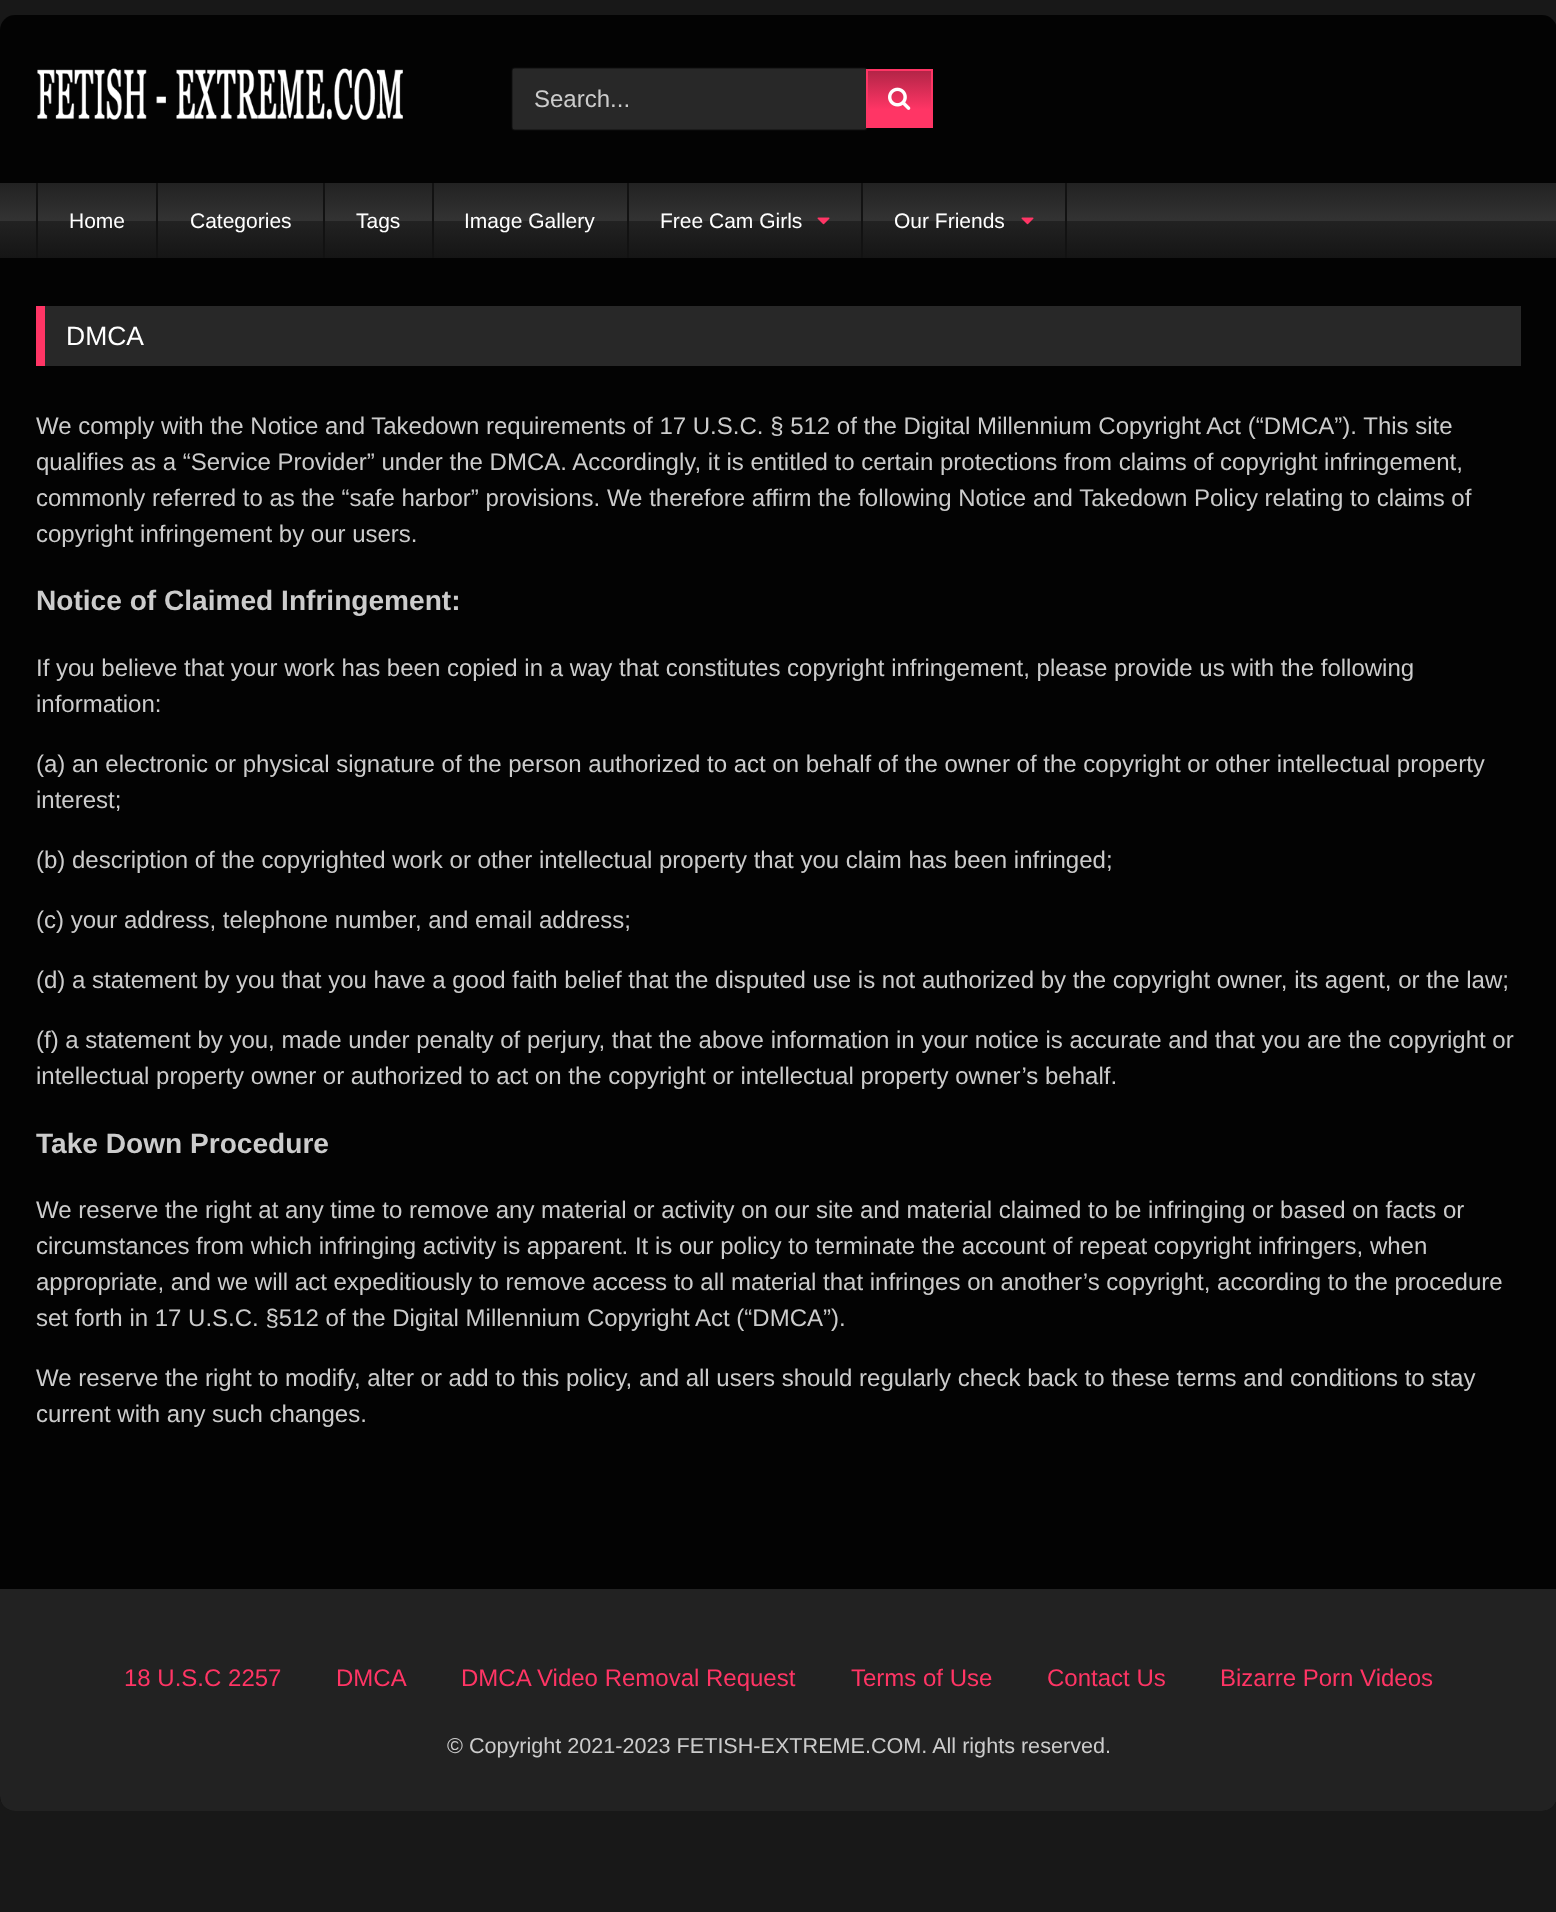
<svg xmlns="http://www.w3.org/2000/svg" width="1556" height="1912">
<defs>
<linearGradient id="g1" gradientUnits="userSpaceOnUse" x1="899" y1="71" x2="899" y2="126"><stop offset="0" stop-color="#b32547"/><stop offset="0.7" stop-color="#ff3565"/></linearGradient>
<linearGradient id="g2" gradientUnits="userSpaceOnUse" x1="779" y1="183" x2="779" y2="258"><stop offset="0" stop-color="#222"/><stop offset="0.5" stop-color="#333"/><stop offset="0.51" stop-color="#222"/><stop offset="1" stop-color="#151515"/></linearGradient>
</defs>
<rect width="100%" height="100%" fill="#181818"/>
<rect y="15" width="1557" height="1796" rx="15" fill="#000000d9"/>
<image x="37" y="68" width="366" height="52" href="media/1.png"/>
<rect x="513" y="69" width="353" height="60" fill="#ffffff4d" filter="blur(1px)"/>
<rect x="513" y="69" width="353" height="60" fill="#282828"/>
<text x="534" y="107" style="font-family:Liberation Sans;font-size:24px;fill:#ccc">Search...</text>
<rect x="868" y="71" width="63" height="55" fill="url(#g1)"/>
<rect x="867" y="70" width="65" height="57" fill="none" stroke="#ff3565" stroke-width="2"/>
<image x="888" y="87" width="23" height="23" href="media/2.png"/>
<rect y="183" width="1556" height="75" fill="url(#g2)"/>
<rect x="156" y="183" width="2" height="75" fill="#121212"/>
<rect x="36" y="183" width="2" height="75" fill="#121212"/>
<text x="69" y="228" style="font-family:Liberation Sans;font-size:21px;fill:#fff">Home</text>
<rect x="323" y="183" width="2" height="75" fill="#121212"/>
<text x="190" y="228" style="font-family:Liberation Sans;font-size:21px;fill:#fff">Categories</text>
<rect x="432" y="183" width="2" height="75" fill="#121212"/>
<text x="356" y="228" style="font-family:Liberation Sans;font-size:21px;fill:#fff">Tags</text>
<rect x="627" y="183" width="2" height="75" fill="#121212"/>
<text x="464" y="228" style="font-family:Liberation Sans;font-size:21px;fill:#fff">Image Gallery</text>
<rect x="861" y="183" width="2" height="75" fill="#121212"/>
<text x="660" y="228" style="font-family:Liberation Sans;font-size:21px;fill:#fff">Free Cam Girls</text>
<image x="817" y="217" width="13" height="8" href="media/3.png"/>
<rect x="1065" y="183" width="2" height="75" fill="#121212"/>
<text x="894" y="228" style="font-family:Liberation Sans;font-size:21px;fill:#fff">Our Friends</text>
<image x="1021" y="217" width="13" height="8" href="media/3.png"/>
<rect x="45" y="306" width="1476" height="60" fill="#282828"/>
<rect x="36" y="306" width="9" height="60" fill="#ff3565"/>
<text x="66" y="345" style="font-family:Liberation Sans;font-size:26.5px;fill:#fff">DMCA</text>
<text x="36" y="434" style="font-family:Liberation Sans;font-size:24px;fill:#ccc">We comply with the Notice and Takedown requirements of 17 U.S.C. § 512 of the Digital Millennium Copyright Act (“DMCA”). This site</text>
<text x="36" y="470" style="font-family:Liberation Sans;font-size:24px;fill:#ccc">qualifies as a “Service Provider” under the DMCA. Accordingly, it is entitled to certain protections from claims of copyright infringement,</text>
<text x="36" y="506" style="font-family:Liberation Sans;font-size:24px;fill:#ccc">commonly referred to as the “safe harbor” provisions. We therefore affirm the following Notice and Takedown Policy relating to claims of</text>
<text x="36" y="542" style="font-family:Liberation Sans;font-size:24px;fill:#ccc">copyright infringement by our users.</text>
<text x="36" y="610" style="font-family:Liberation Sans;font-size:28.1px;font-weight:bold;fill:#ccc">Notice of Claimed Infringement:</text>
<text x="36" y="676" style="font-family:Liberation Sans;font-size:24px;fill:#ccc">If you believe that your work has been copied in a way that constitutes copyright infringement, please provide us with the following</text>
<text x="36" y="712" style="font-family:Liberation Sans;font-size:24px;fill:#ccc">information:</text>
<text x="36" y="772" style="font-family:Liberation Sans;font-size:24px;fill:#ccc">(a) an electronic or physical signature of the person authorized to act on behalf of the owner of the copyright or other intellectual property</text>
<text x="36" y="808" style="font-family:Liberation Sans;font-size:24px;fill:#ccc">interest;</text>
<text x="36" y="868" style="font-family:Liberation Sans;font-size:24px;fill:#ccc">(b) description of the copyrighted work or other intellectual property that you claim has been infringed;</text>
<text x="36" y="928" style="font-family:Liberation Sans;font-size:24px;fill:#ccc">(c) your address, telephone number, and email address;</text>
<text x="36" y="988" style="font-family:Liberation Sans;font-size:24px;fill:#ccc">(d) a statement by you that you have a good faith belief that the disputed use is not authorized by the copyright owner, its agent, or the law;</text>
<text x="36" y="1048" style="font-family:Liberation Sans;font-size:24px;fill:#ccc">(f) a statement by you, made under penalty of perjury, that the above information in your notice is accurate and that you are the copyright or</text>
<text x="36" y="1084" style="font-family:Liberation Sans;font-size:24px;fill:#ccc">intellectual property owner or authorized to act on the copyright or intellectual property owner’s behalf.</text>
<text x="36" y="1153" style="font-family:Liberation Sans;font-size:28.1px;font-weight:bold;fill:#ccc">Take Down Procedure</text>
<text x="36" y="1218" style="font-family:Liberation Sans;font-size:24px;fill:#ccc">We reserve the right at any time to remove any material or activity on our site and material claimed to be infringing or based on facts or</text>
<text x="36" y="1254" style="font-family:Liberation Sans;font-size:24px;fill:#ccc">circumstances from which infringing activity is apparent. It is our policy to terminate the account of repeat copyright infringers, when</text>
<text x="36" y="1290" style="font-family:Liberation Sans;font-size:24px;fill:#ccc">appropriate, and we will act expeditiously to remove access to all material that infringes on another’s copyright, according to the procedure</text>
<text x="36" y="1326" style="font-family:Liberation Sans;font-size:24px;fill:#ccc">set forth in 17 U.S.C. §512 of the Digital Millennium Copyright Act (“DMCA”).</text>
<text x="36" y="1386" style="font-family:Liberation Sans;font-size:24px;fill:#ccc">We reserve the right to modify, alter or add to this policy, and all users should regularly check back to these terms and conditions to stay</text>
<text x="36" y="1422" style="font-family:Liberation Sans;font-size:24px;fill:#ccc">current with any such changes.</text>
<path d="M0 1589h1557v207c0 8.5-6.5 15-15 15h-1527c-8.5 0-15-6.5-15-15z" fill="#222"/>
<text x="124" y="1686" style="font-family:Liberation Sans;font-size:24px;fill:#ff3565">18 U.S.C 2257</text>
<text x="336" y="1686" style="font-family:Liberation Sans;font-size:24px;fill:#ff3565">DMCA</text>
<text x="461" y="1686" style="font-family:Liberation Sans;font-size:24px;fill:#ff3565">DMCA Video Removal Request</text>
<text x="851" y="1686" style="font-family:Liberation Sans;font-size:24px;fill:#ff3565">Terms of Use</text>
<text x="1047" y="1686" style="font-family:Liberation Sans;font-size:24px;fill:#ff3565">Contact Us</text>
<text x="1220" y="1686" style="font-family:Liberation Sans;font-size:24px;fill:#ff3565">Bizarre Porn Videos</text>
<text x="447" y="1753" style="font-family:Liberation Sans;font-size:21.6px;fill:#ccc">© Copyright 2021-2023 FETISH-EXTREME.COM. All rights reserved.</text>
</svg>
